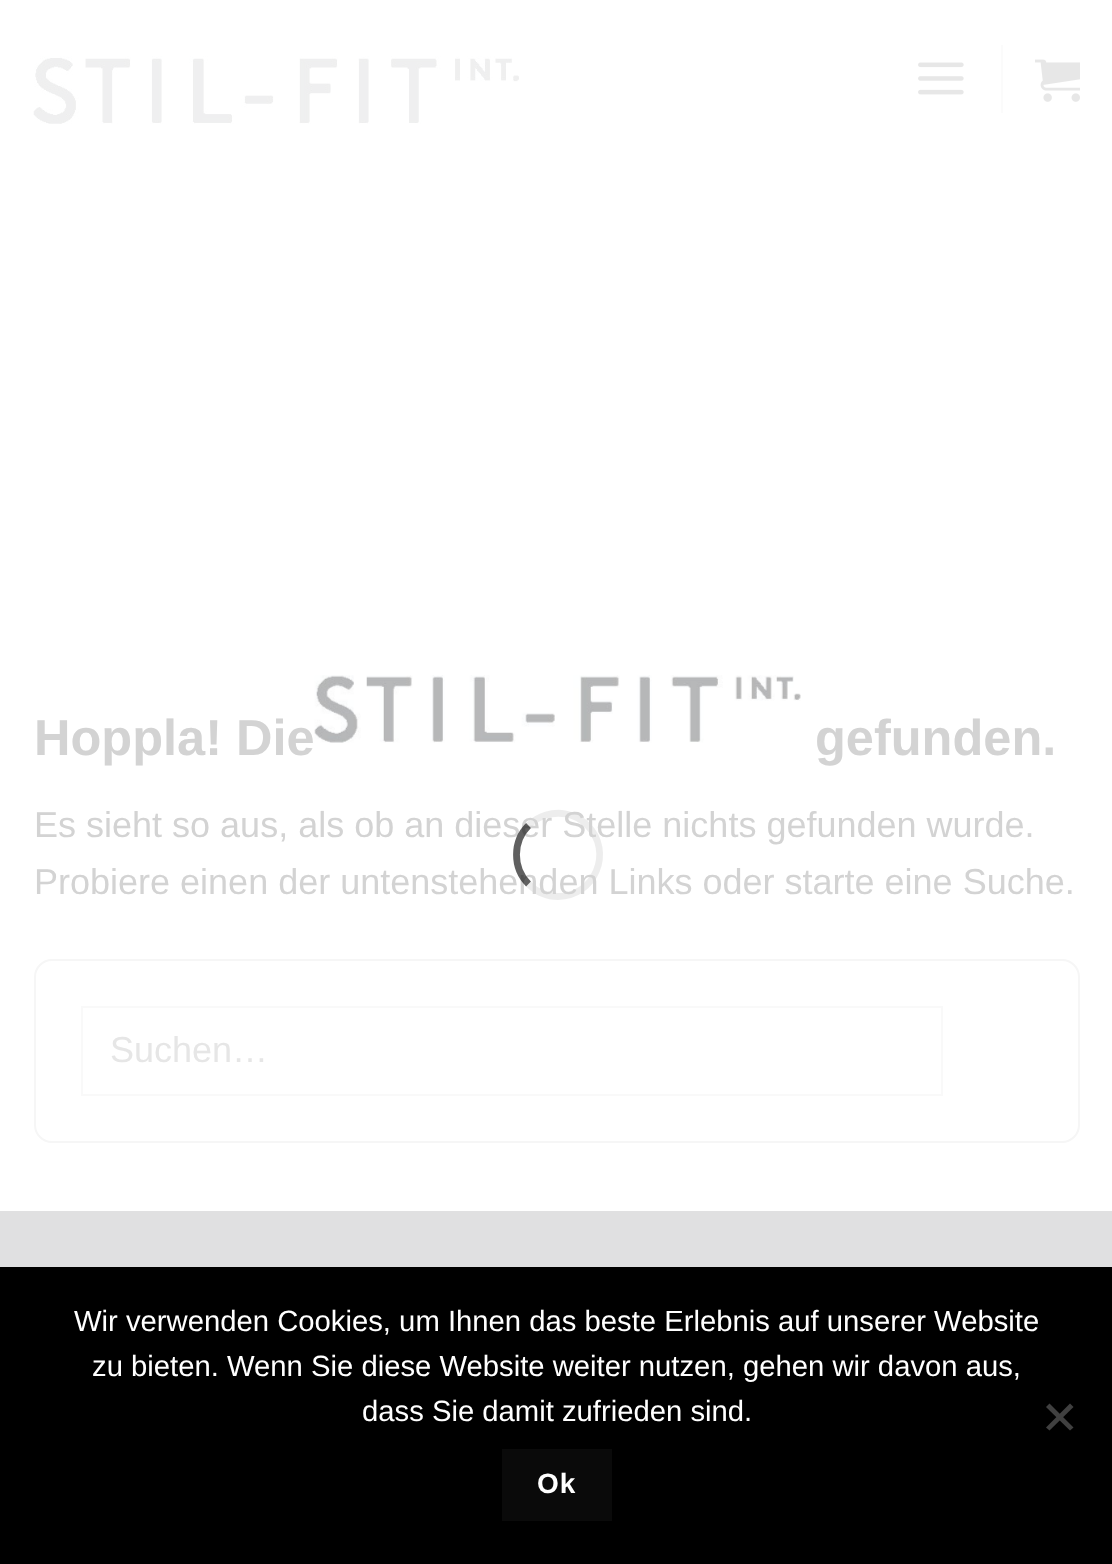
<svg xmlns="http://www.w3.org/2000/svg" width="1112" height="1564">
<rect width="100%" height="100%" fill="#fff"/>
<image x="33" y="56" width="486" height="68" href="media/1.png"/>
<image x="918" y="62" width="46" height="33" href="media/2.png"/>
<rect x="1001" y="45" width="2" height="68" fill="#fbfbfb"/>
<image x="1035" y="59" width="45" height="43" href="media/3.png"/>
<image x="314" y="675" width="487" height="68" href="media/4.png"/>
<path d="M528.5 825.5c10-10 24-14 37.5-11.5c8 1.5 15.5 5.5 21.5 11.5c26 26 7.5 71-29.5 71c-11 0-21.5-4.5-29.5-12.5" fill="none" stroke="#00000012" stroke-width="6.8"/>
<text x="34" y="837" style="font-family:Liberation Sans;font-size:36px;fill:#d3d3d3">Es sieht so aus, als ob an dieser Stelle nichts gefunden wurde.</text>
<text x="34" y="894" style="font-family:Liberation Sans;font-size:36px;fill:#d3d3d3">Probiere einen der untenstehenden Links oder starte eine Suche.</text>
<path d="M528.5 884c-16-16-16-42.5 0-58.5" fill="none" stroke="#0a0a0aa6" stroke-width="6.8"/>
<text x="34" y="755" style="font-family:Liberation Sans;font-size:50.5px;font-weight:bold;fill:#d3d3d3">Hoppla! Die</text>
<text x="815" y="755" style="font-family:Liberation Sans;font-size:50.5px;font-weight:bold;fill:#d3d3d3">gefunden.</text>
<rect x="35" y="960" width="1044" height="182" rx="17" fill="none" stroke="#f6f6f6" stroke-width="2"/>
<rect x="82" y="1007" width="860" height="88" fill="none" stroke="#f9f9f9" stroke-width="2"/>
<text x="110" y="1062" style="font-family:Liberation Sans;font-size:36px;fill:#e6e6e6">Suchen…</text>
<rect y="1211" width="1112" height="56" fill="#e0e0e1"/>
<rect y="1267" width="1112" height="297" fill="#000"/>
<text x="74" y="1331" style="font-family:Liberation Sans;font-size:29.25px;fill:#fff">Wir verwenden Cookies, um Ihnen das beste Erlebnis auf unserer Website</text>
<text x="92" y="1376" style="font-family:Liberation Sans;font-size:29.25px;fill:#fff">zu bieten. Wenn Sie diese Website weiter nutzen, gehen wir davon aus,</text>
<text x="362" y="1421" style="font-family:Liberation Sans;font-size:29.25px;fill:#fff">dass Sie damit zufrieden sind.</text>
<path d="M1070 1403.5l3.5 3.5l-24 23.5l-3.5-3z" fill="#404040"/>
<path d="M1046 1407l3.5-3.5l24 24l-3.5 3z" fill="#404040"/>
<rect x="502" y="1449" width="110" height="72" fill="#0a0a0a"/>
<text x="537" y="1493" style="font-family:Liberation Sans;font-size:28px;font-weight:bold;letter-spacing:1px;fill:#fff">Ok</text>
</svg>
